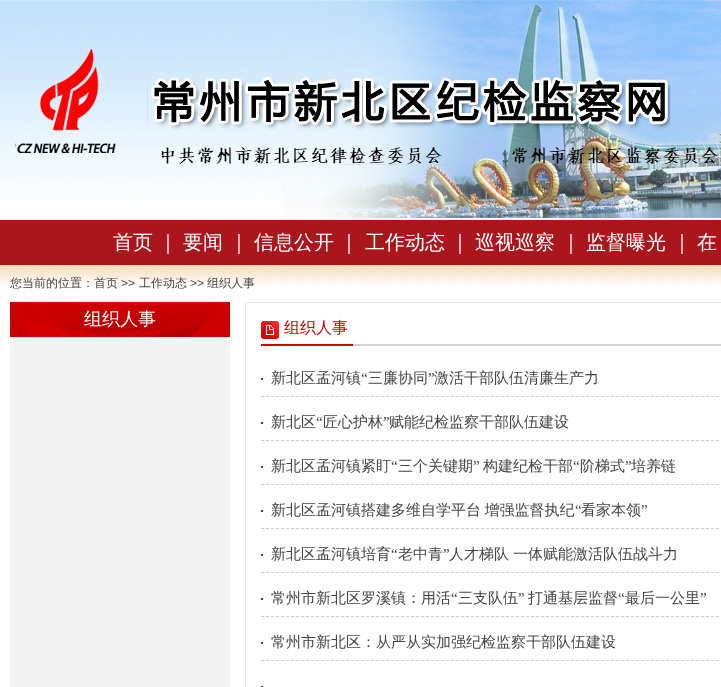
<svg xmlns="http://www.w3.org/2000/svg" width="721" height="687">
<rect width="100%" height="100%" fill="#fff"/>
<image x="0" y="218" width="721" height="2" href="media/1.png"/>
<image x="0" y="0" width="721" height="218" href="media/2.png"/>
<rect y="220" width="721" height="45" fill="#ab161c"/>
<text x="113" y="249" style="font-family:WenQuanYi Zen Hei;font-size:20px;font-weight:500;fill:#fff">首页</text>
<text x="158" y="249" style="font-family:WenQuanYi Zen Hei;font-size:20px;font-weight:500;fill:#fff">｜</text>
<text x="183" y="249" style="font-family:WenQuanYi Zen Hei;font-size:20px;font-weight:500;fill:#fff">要闻</text>
<text x="229" y="249" style="font-family:WenQuanYi Zen Hei;font-size:20px;font-weight:500;fill:#fff">｜</text>
<text x="254" y="249" style="font-family:WenQuanYi Zen Hei;font-size:20px;font-weight:500;fill:#fff">信息公开</text>
<text x="339" y="249" style="font-family:WenQuanYi Zen Hei;font-size:20px;font-weight:500;fill:#fff">｜</text>
<text x="365" y="249" style="font-family:WenQuanYi Zen Hei;font-size:20px;font-weight:500;fill:#fff">工作动态</text>
<text x="450" y="249" style="font-family:WenQuanYi Zen Hei;font-size:20px;font-weight:500;fill:#fff">｜</text>
<text x="475" y="249" style="font-family:WenQuanYi Zen Hei;font-size:20px;font-weight:500;fill:#fff">巡视巡察</text>
<text x="561" y="249" style="font-family:WenQuanYi Zen Hei;font-size:20px;font-weight:500;fill:#fff">｜</text>
<text x="586" y="249" style="font-family:WenQuanYi Zen Hei;font-size:20px;font-weight:500;fill:#fff">监督曝光</text>
<text x="672" y="249" style="font-family:WenQuanYi Zen Hei;font-size:20px;font-weight:500;fill:#fff">｜</text>
<text x="697" y="249" style="font-family:WenQuanYi Zen Hei;font-size:20px;font-weight:500;fill:#fff">在</text>
<image x="0" y="265" width="721" height="21" href="media/3.png"/>
<text x="10" y="287" style="font-family:WenQuanYi Zen Hei;font-size:12px;font-weight:500;fill:#444">您当前的位置：首页</text>
<text x="121" y="287" style="font-family:Liberation Sans;font-size:12px;fill:#444">&gt;&gt;</text>
<text x="139" y="287" style="font-family:WenQuanYi Zen Hei;font-size:12px;font-weight:500;fill:#444">工作动态</text>
<text x="190" y="287" style="font-family:Liberation Sans;font-size:12px;fill:#444">&gt;&gt;</text>
<text x="207" y="287" style="font-family:WenQuanYi Zen Hei;font-size:12px;font-weight:500;fill:#444">组织人事</text>
<rect x="10" y="337" width="220" height="350" fill="#f3f3f3"/>
<image x="10" y="302" width="220" height="35" href="media/4.png"/>
<text x="84" y="325" style="font-family:WenQuanYi Zen Hei;font-size:18px;font-weight:500;fill:#fff">组织人事</text>
<rect x="245.5" y="302.5" width="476" height="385" fill="none" stroke="#e6e6e6"/>
<rect x="353" y="344" width="368" height="2" fill="#d4d3d3"/>
<rect x="261" y="344" width="92" height="2" fill="#ce0000"/>
<image x="261" y="321" width="18" height="18" href="media/5.png"/>
<text x="284" y="333" style="font-family:WenQuanYi Zen Hei;font-size:16px;font-weight:500;fill:#ce0000">组织人事</text>
<path d="M261 396.5h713" fill="none" stroke="#ccc" stroke-dasharray="3 2"/>
<rect x="261" y="378" width="2" height="2" fill="#3d3d3d"/>
<text x="271" y="383" style="font-family:WenQuanYi Zen Hei;font-size:15px;font-weight:500;fill:#444">新北区孟河镇</text>
<text x="361" y="383" style="font-family:Liberation Serif;font-size:15px;fill:#444">“</text>
<text x="368" y="383" style="font-family:WenQuanYi Zen Hei;font-size:15px;font-weight:500;fill:#444">三廉协同</text>
<text x="428" y="383" style="font-family:Liberation Serif;font-size:15px;fill:#444">”</text>
<text x="434" y="383" style="font-family:WenQuanYi Zen Hei;font-size:15px;font-weight:500;fill:#444">激活干部队伍清廉生产力</text>
<path d="M261 440.5h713" fill="none" stroke="#ccc" stroke-dasharray="3 2"/>
<rect x="261" y="422" width="2" height="2" fill="#3d3d3d"/>
<text x="271" y="427" style="font-family:WenQuanYi Zen Hei;font-size:15px;font-weight:500;fill:#444">新北区</text>
<text x="316" y="427" style="font-family:Liberation Serif;font-size:15px;fill:#444">“</text>
<text x="323" y="427" style="font-family:WenQuanYi Zen Hei;font-size:15px;font-weight:500;fill:#444">匠心护林</text>
<text x="383" y="427" style="font-family:Liberation Serif;font-size:15px;fill:#444">”</text>
<text x="389" y="427" style="font-family:WenQuanYi Zen Hei;font-size:15px;font-weight:500;fill:#444">赋能纪检监察干部队伍建设</text>
<path d="M261 484.5h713" fill="none" stroke="#ccc" stroke-dasharray="3 2"/>
<rect x="261" y="466" width="2" height="2" fill="#3d3d3d"/>
<text x="271" y="471" style="font-family:WenQuanYi Zen Hei;font-size:15px;font-weight:500;fill:#444">新北区孟河镇紧盯</text>
<text x="391" y="471" style="font-family:Liberation Serif;font-size:15px;fill:#444">“</text>
<text x="398" y="471" style="font-family:WenQuanYi Zen Hei;font-size:15px;font-weight:500;fill:#444">三个关键期</text>
<text x="473" y="471" style="font-family:Liberation Serif;font-size:15px;fill:#444">”</text>
<text x="483" y="471" style="font-family:WenQuanYi Zen Hei;font-size:15px;font-weight:500;fill:#444">构建纪检干部</text>
<text x="573" y="471" style="font-family:Liberation Serif;font-size:15px;fill:#444">“</text>
<text x="580" y="471" style="font-family:WenQuanYi Zen Hei;font-size:15px;font-weight:500;fill:#444">阶梯式</text>
<text x="625" y="471" style="font-family:Liberation Serif;font-size:15px;fill:#444">”</text>
<text x="631" y="471" style="font-family:WenQuanYi Zen Hei;font-size:15px;font-weight:500;fill:#444">培养链</text>
<path d="M261 528.5h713" fill="none" stroke="#ccc" stroke-dasharray="3 2"/>
<rect x="261" y="510" width="2" height="2" fill="#3d3d3d"/>
<text x="271" y="515" word-spacing="-1" style="font-family:WenQuanYi Zen Hei;font-size:15px;font-weight:500;fill:#444">新北区孟河镇搭建多维自学平台 增强监督执纪</text>
<text x="575" y="515" style="font-family:Liberation Serif;font-size:15px;fill:#444">“</text>
<text x="581" y="515" style="font-family:WenQuanYi Zen Hei;font-size:15px;font-weight:500;fill:#444">看家本领</text>
<text x="641" y="515" style="font-family:Liberation Serif;font-size:15px;fill:#444">”</text>
<path d="M261 572.5h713" fill="none" stroke="#ccc" stroke-dasharray="3 2"/>
<rect x="261" y="554" width="2" height="2" fill="#3d3d3d"/>
<text x="271" y="559" style="font-family:WenQuanYi Zen Hei;font-size:15px;font-weight:500;fill:#444">新北区孟河镇培育</text>
<text x="391" y="559" style="font-family:Liberation Serif;font-size:15px;fill:#444">“</text>
<text x="398" y="559" style="font-family:WenQuanYi Zen Hei;font-size:15px;font-weight:500;fill:#444">老中青</text>
<text x="443" y="559" style="font-family:Liberation Serif;font-size:15px;fill:#444">”</text>
<text x="449" y="559" style="font-family:WenQuanYi Zen Hei;font-size:15px;font-weight:500;fill:#444">人才梯队</text>
<text x="513" y="559" style="font-family:WenQuanYi Zen Hei;font-size:15px;font-weight:500;fill:#444">一体赋能激活队伍战斗力</text>
<path d="M261 616.5h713" fill="none" stroke="#ccc" stroke-dasharray="3 2"/>
<rect x="261" y="598" width="2" height="2" fill="#3d3d3d"/>
<text x="271" y="603" style="font-family:WenQuanYi Zen Hei;font-size:15px;font-weight:500;fill:#444">常州市新北区罗溪镇：用活</text>
<text x="451" y="603" style="font-family:Liberation Serif;font-size:15px;fill:#444">“</text>
<text x="458" y="603" style="font-family:WenQuanYi Zen Hei;font-size:15px;font-weight:500;fill:#444">三支队伍</text>
<text x="518" y="603" style="font-family:Liberation Serif;font-size:15px;fill:#444">”</text>
<text x="528" y="603" style="font-family:WenQuanYi Zen Hei;font-size:15px;font-weight:500;fill:#444">打通基层监督</text>
<text x="618" y="603" style="font-family:Liberation Serif;font-size:15px;fill:#444">“</text>
<text x="625" y="603" style="font-family:WenQuanYi Zen Hei;font-size:15px;font-weight:500;fill:#444">最后一公里</text>
<text x="700" y="603" style="font-family:Liberation Serif;font-size:15px;fill:#444">”</text>
<path d="M261 660.5h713" fill="none" stroke="#ccc" stroke-dasharray="3 2"/>
<rect x="261" y="642" width="2" height="2" fill="#3d3d3d"/>
<text x="271" y="647" style="font-family:WenQuanYi Zen Hei;font-size:15px;font-weight:500;fill:#444">常州市新北区：从严从实加强纪检监察干部队伍建设</text>
<rect x="261" y="686" width="2" height="1" fill="#3d3d3d"/>
</svg>
